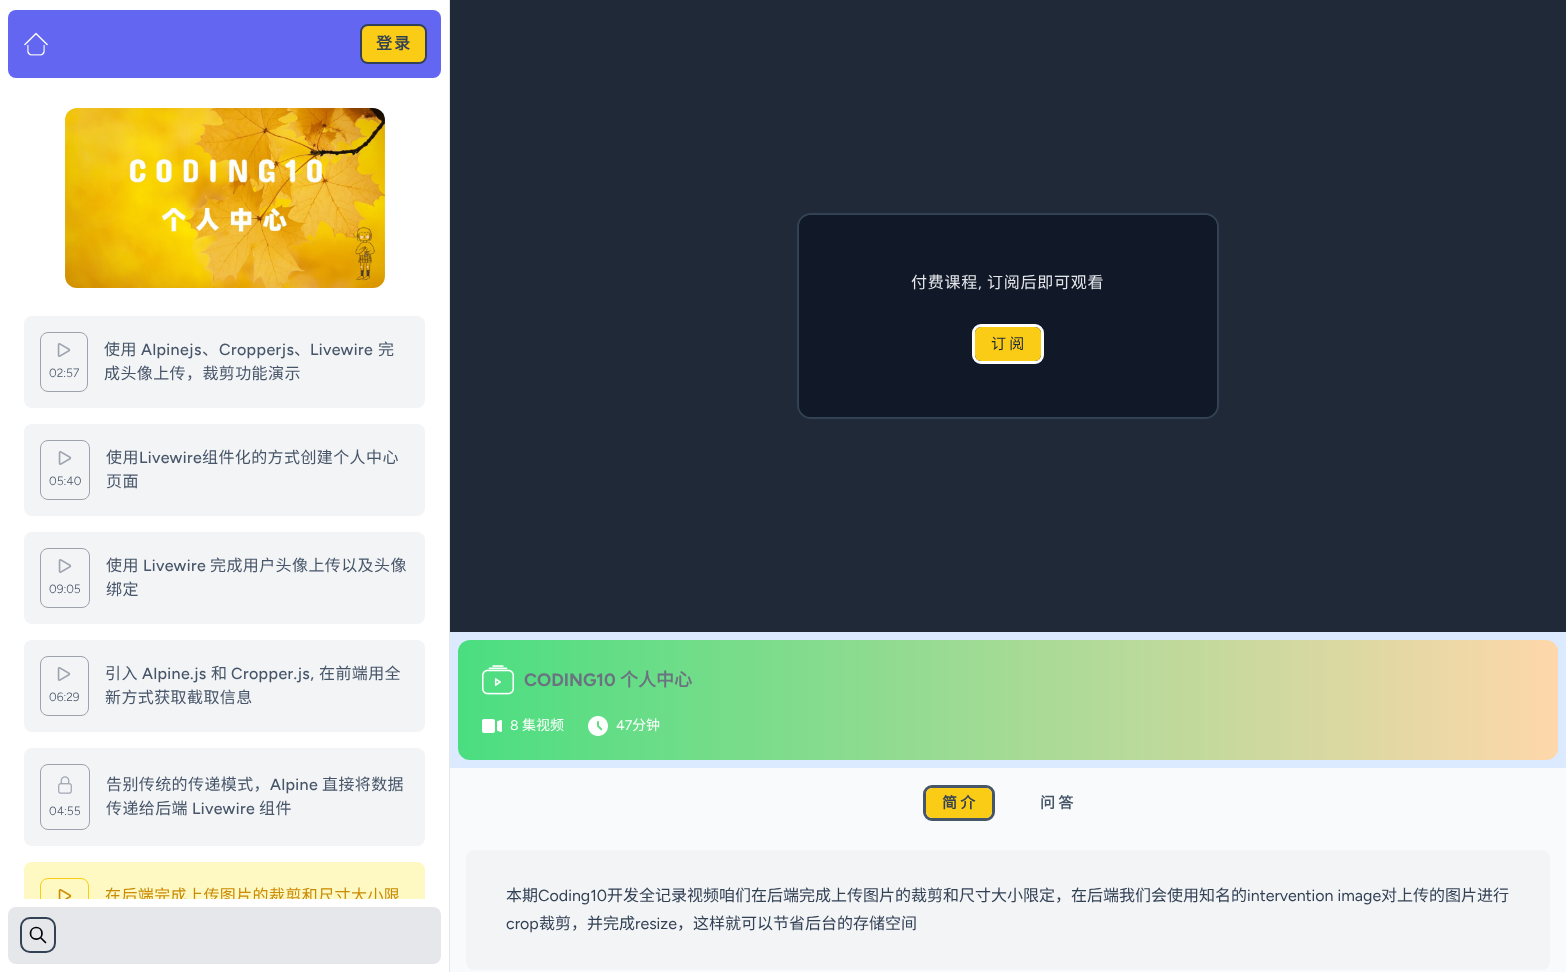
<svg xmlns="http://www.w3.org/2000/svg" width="1566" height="972">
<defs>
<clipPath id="clip1"><rect y="88" width="449" height="811"/></clipPath>
<linearGradient id="g1" gradientUnits="userSpaceOnUse" x1="458" y1="700" x2="1558" y2="700"><stop offset="0" stop-color="#4ade80"/><stop offset="1" stop-color="#fed7aa"/></linearGradient>
</defs>
<rect width="100%" height="100%" fill="#f9fafb"/>
<rect width="449" height="972" fill="#fff"/>
<rect x="449" width="1" height="972" fill="#e5e7eb"/>
<rect x="8" y="10" width="433" height="68" rx="8" fill="#6366f1"/>
<image x="24" y="32" width="24" height="24" href="media/1.png"/>
<rect x="361" y="25" width="65" height="38" rx="7" fill="none" stroke="#334155" stroke-width="2"/>
<rect x="362" y="26" width="63" height="36" rx="6" fill="#facc15"/>
<text x="376" y="49" style="font-family:Noto Sans CJK SC;font-size:16px;font-weight:bold;letter-spacing:2px;fill:#334155">登录</text>
<image x="65" y="108" width="320" height="180" href="media/2.png"/>
<rect x="24" y="316" width="401" height="92" rx="8" fill="#f3f4f6"/>
<rect x="40.5" y="332.5" width="47" height="59" rx="7.5" fill="none" stroke="#9ca3af"/>
<image x="57" y="343" width="14" height="14" href="media/3.png"/>
<text x="49" y="377" style="font-family:Figtree;font-size:12px;font-weight:300;fill:#475569">02:57</text>
<text x="104" y="355" style="font-family:Noto Sans CJK SC;font-size:16px;letter-spacing:0.4px;fill:#475569">使用</text>
<text x="141" y="355" style="font-family:Figtree;font-size:16px;font-weight:500;letter-spacing:0.4px;fill:#475569">Alpinejs</text>
<text x="202" y="355" style="font-family:Noto Sans CJK SC;font-size:16px;letter-spacing:0.4px;fill:#475569">、</text>
<text x="219" y="355" style="font-family:Figtree;font-size:16px;font-weight:500;letter-spacing:0.4px;fill:#475569">Cropperjs</text>
<text x="294" y="355" style="font-family:Noto Sans CJK SC;font-size:16px;letter-spacing:0.4px;fill:#475569">、</text>
<text x="310" y="355" style="font-family:Figtree;font-size:16px;font-weight:500;letter-spacing:0.4px;fill:#475569">Livewire</text>
<text x="378" y="355" style="font-family:Noto Sans CJK SC;font-size:16px;letter-spacing:0.4px;fill:#475569">完</text>
<text x="104" y="379" style="font-family:Noto Sans CJK SC;font-size:16px;letter-spacing:0.4px;fill:#475569">成头像上传，裁剪功能演示</text>
<rect x="24" y="424" width="401" height="92" rx="8" fill="#f3f4f6"/>
<rect x="40.5" y="440.5" width="49" height="59" rx="7.5" fill="none" stroke="#9ca3af"/>
<image x="58" y="451" width="14" height="14" href="media/3.png"/>
<text x="49" y="485" style="font-family:Figtree;font-size:12px;font-weight:300;fill:#475569">05:40</text>
<text x="106" y="463" style="font-family:Noto Sans CJK SC;font-size:16px;letter-spacing:0.4px;fill:#475569">使用</text>
<text x="139" y="463" style="font-family:Figtree;font-size:16px;font-weight:500;letter-spacing:0.4px;fill:#475569">Livewire</text>
<text x="202" y="463" style="font-family:Noto Sans CJK SC;font-size:16px;letter-spacing:0.4px;fill:#475569">组件化的方式创建个人中心</text>
<text x="106" y="487" style="font-family:Noto Sans CJK SC;font-size:16px;letter-spacing:0.4px;fill:#475569">页面</text>
<rect x="24" y="532" width="401" height="92" rx="8" fill="#f3f4f6"/>
<rect x="40.5" y="548.5" width="49" height="59" rx="7.5" fill="none" stroke="#9ca3af"/>
<image x="58" y="559" width="14" height="14" href="media/3.png"/>
<text x="49" y="593" style="font-family:Figtree;font-size:12px;font-weight:300;fill:#475569">09:05</text>
<text x="106" y="571" style="font-family:Noto Sans CJK SC;font-size:16px;letter-spacing:0.4px;fill:#475569">使用</text>
<text x="143" y="571" style="font-family:Figtree;font-size:16px;font-weight:500;letter-spacing:0.4px;fill:#475569">Livewire</text>
<text x="210" y="571" style="font-family:Noto Sans CJK SC;font-size:16px;letter-spacing:0.4px;fill:#475569">完成用户头像上传以及头像</text>
<text x="106" y="595" style="font-family:Noto Sans CJK SC;font-size:16px;letter-spacing:0.4px;fill:#475569">绑定</text>
<rect x="24" y="640" width="401" height="92" rx="8" fill="#f3f4f6"/>
<rect x="40.5" y="656.5" width="48" height="59" rx="7.5" fill="none" stroke="#9ca3af"/>
<image x="57" y="667" width="14" height="14" href="media/3.png"/>
<text x="49" y="701" style="font-family:Figtree;font-size:12px;font-weight:300;fill:#475569">06:29</text>
<text x="105" y="679" style="font-family:Noto Sans CJK SC;font-size:16px;letter-spacing:0.4px;fill:#475569">引入</text>
<text x="142" y="679" style="font-family:Figtree;font-size:16px;font-weight:500;letter-spacing:0.4px;fill:#475569">Alpine.js</text>
<text x="211" y="679" style="font-family:Noto Sans CJK SC;font-size:16px;letter-spacing:0.4px;fill:#475569">和</text>
<text x="231" y="679" style="font-family:Figtree;font-size:16px;font-weight:500;letter-spacing:0.4px;fill:#475569">Cropper.js,</text>
<text x="319" y="679" style="font-family:Noto Sans CJK SC;font-size:16px;letter-spacing:0.4px;fill:#475569">在前端用全</text>
<text x="105" y="703" style="font-family:Noto Sans CJK SC;font-size:16px;letter-spacing:0.4px;fill:#475569">新方式获取截取信息</text>
<rect x="24" y="748" width="401" height="98" rx="8" fill="#f3f4f6"/>
<rect x="40.5" y="764.5" width="49" height="65" rx="7.5" fill="none" stroke="#9ca3af"/>
<image x="58" y="776" width="14" height="18" href="media/4.png"/>
<text x="49" y="815" style="font-family:Figtree;font-size:12px;font-weight:300;fill:#475569">04:55</text>
<text x="106" y="790" style="font-family:Noto Sans CJK SC;font-size:16px;letter-spacing:0.4px;fill:#475569">告别传统的传递模式，</text>
<text x="270" y="790" style="font-family:Figtree;font-size:16px;font-weight:500;letter-spacing:0.4px;fill:#475569">Alpine</text>
<text x="322" y="790" style="font-family:Noto Sans CJK SC;font-size:16px;letter-spacing:0.4px;fill:#475569">直接将数据</text>
<text x="106" y="814" style="font-family:Noto Sans CJK SC;font-size:16px;letter-spacing:0.4px;fill:#475569">传递给后端</text>
<text x="192" y="814" style="font-family:Figtree;font-size:16px;font-weight:500;letter-spacing:0.4px;fill:#475569">Livewire</text>
<text x="259" y="814" style="font-family:Noto Sans CJK SC;font-size:16px;letter-spacing:0.4px;fill:#475569">组件</text>
<path d="M32 862h385c4.5 0 8 3.5 8 8v29h-401v-29c0-4.5 3.5-8 8-8z" fill="#fef9c3"/>
<rect x="8" y="907" width="433" height="57" rx="8" fill="#e5e7eb"/>
<g clip-path="url(#clip1)">
<rect x="40.5" y="878.5" width="48" height="59" rx="7.5" fill="none" stroke="#facc15"/>
</g>
<image x="58" y="889" width="14" height="10" href="media/5.png"/>
<g clip-path="url(#clip1)">
<text x="105" y="901" style="font-family:Noto Sans CJK SC;font-size:16px;letter-spacing:0.4px;fill:#ca8a04">在后端完成上传图片的裁剪和尺寸大小限</text>
</g>
<rect x="21" y="918" width="34" height="34" rx="9" fill="none" stroke="#334155" stroke-width="2"/>
<path d="M45.5 942.5l-5-5m1.5-4c0 7.5-11.5 7.5-11.5 0c0-8 11.5-8 11.5 0z" fill="none" stroke="#000" stroke-width="1.7" stroke-linecap="round" stroke-linejoin="round"/>
<rect x="450" width="1116" height="632" fill="#1f2937"/>
<rect x="798" y="214" width="420" height="204" rx="13" fill="none" stroke="#334155" stroke-width="2"/>
<rect x="799" y="215" width="418" height="202" rx="12" fill="#111827"/>
<text x="911" y="288" style="font-family:Noto Sans CJK SC;font-size:16px;letter-spacing:0.75px;fill:#e5e7eb">付费课程</text>
<text x="978" y="288" style="font-family:Figtree;font-size:16px;letter-spacing:0.75px;fill:#e5e7eb">,</text>
<text x="987" y="288" style="font-family:Noto Sans CJK SC;font-size:16px;letter-spacing:0.75px;fill:#e5e7eb">订阅后即可观看</text>
<rect x="973.5" y="325.5" width="69" height="37" rx="7.5" fill="none" stroke="#fff" stroke-width="3"/>
<rect x="975" y="327" width="66" height="34" rx="6" fill="#facc15"/>
<text x="991" y="349" style="font-family:Noto Sans CJK SC;font-size:15px;fill:#1e293b">订 阅</text>
<rect x="450" y="632" width="1116" height="136" fill="#dbeafe"/>
<rect x="458" y="640" width="1100" height="120" rx="12" fill="url(#g1)"/>
<image x="482" y="665" width="32" height="30" href="media/6.png"/>
<text x="524" y="686" style="font-family:Figtree;font-size:18px;font-weight:bold;fill:#6b7280">CODING10</text>
<text x="620" y="686" style="font-family:Noto Sans CJK SC;font-size:18px;font-weight:bold;fill:#6b7280">个人中心</text>
<image x="482" y="719" width="20" height="14" href="media/7.png"/>
<text x="510" y="730" style="font-family:Figtree;font-size:14px;fill:#fff">8</text>
<text x="522" y="730" style="font-family:Noto Sans CJK SC;font-size:14px;fill:#fff">集视频</text>
<image x="588" y="716" width="20" height="20" href="media/8.png"/>
<text x="616" y="730" style="font-family:Figtree;font-size:14px;fill:#fff">47</text>
<text x="632" y="730" style="font-family:Noto Sans CJK SC;font-size:14px;fill:#fff">分钟</text>
<rect x="924.5" y="786.5" width="69" height="33" rx="7.5" fill="none" stroke="#475569" stroke-width="3"/>
<rect x="926" y="788" width="66" height="30" rx="6" fill="#facc15"/>
<text x="942" y="808" style="font-family:Noto Sans CJK SC;font-size:15px;font-weight:bold;fill:#334155">简 介</text>
<text x="1040" y="808" style="font-family:Noto Sans CJK SC;font-size:15px;font-weight:bold;fill:#475569">问 答</text>
<rect x="466" y="850" width="1084" height="120" rx="8" fill="#f3f4f6"/>
<text x="506" y="901" style="font-family:Noto Sans CJK SC;font-size:16px;fill:#334155">本期</text>
<text x="538" y="901" style="font-family:Figtree;font-size:16px;fill:#334155">Coding10</text>
<text x="607" y="901" style="font-family:Noto Sans CJK SC;font-size:16px;fill:#334155">开发全记录视频咱们在后端完成上传图片的裁剪和尺寸大小限定，在后端我们会使用知名的</text>
<text x="1247" y="901" style="font-family:Figtree;font-size:16px;fill:#334155">intervention image</text>
<text x="1381" y="901" style="font-family:Noto Sans CJK SC;font-size:16px;fill:#334155">对上传的图片进行</text>
<text x="506" y="929" style="font-family:Figtree;font-size:16px;fill:#334155">crop</text>
<text x="539" y="929" style="font-family:Noto Sans CJK SC;font-size:16px;fill:#334155">裁剪，并完成</text>
<text x="635" y="929" style="font-family:Figtree;font-size:16px;fill:#334155">resize</text>
<text x="677" y="929" style="font-family:Noto Sans CJK SC;font-size:16px;fill:#334155">，这样就可以节省后台的存储空间</text>
</svg>
